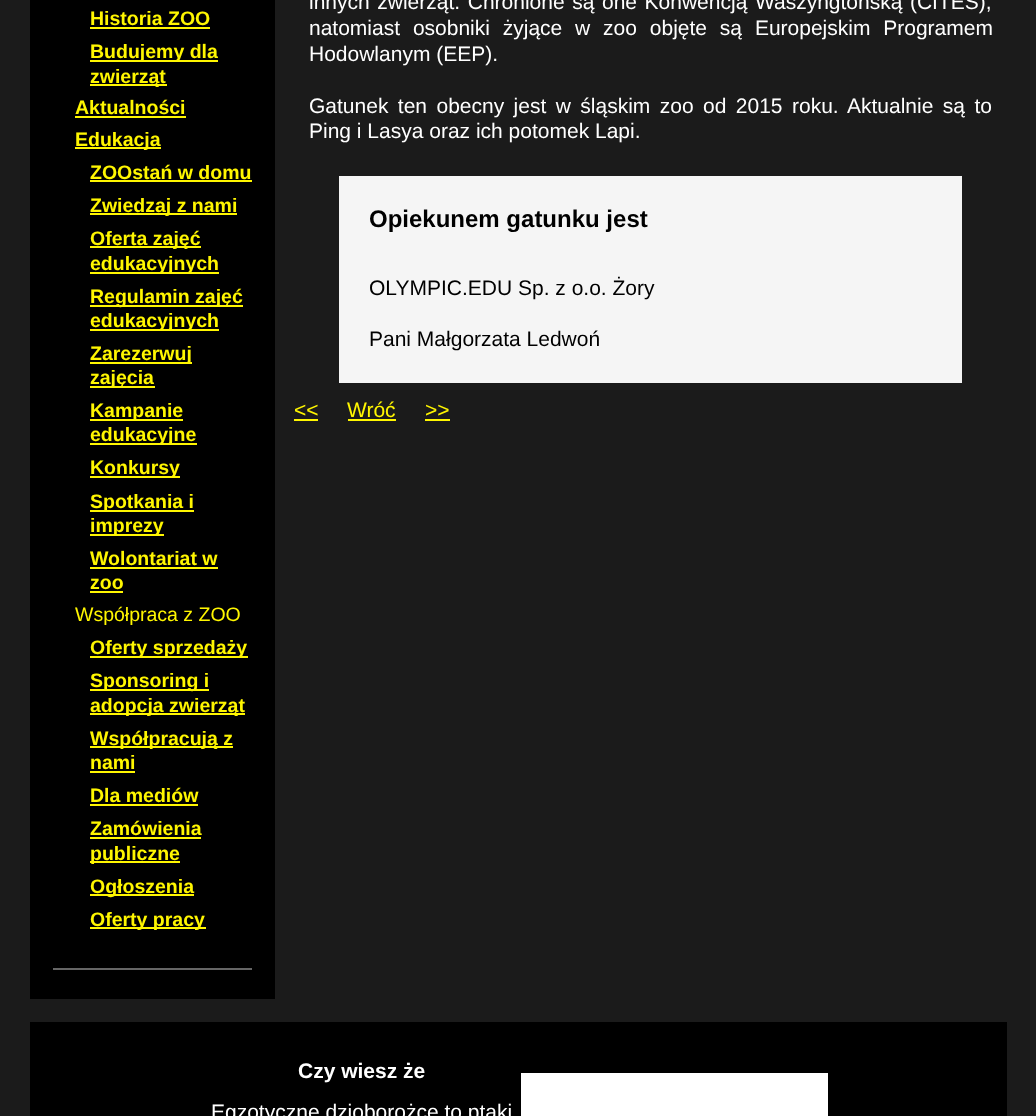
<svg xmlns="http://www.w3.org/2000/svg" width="1036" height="1116">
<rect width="100%" height="100%" fill="#1b1b1b"/>
<rect x="30" width="245" height="999" fill="#000"/>
<rect x="53" y="968" width="199" height="2" fill="#666"/>
<text x="90" y="25" style="font-family:Liberation Sans;font-size:19.5px;font-weight:bold;fill:#fff600">Historia ZOO</text>
<rect x="90" y="27" width="120" height="2" fill="#fff600"/>
<rect x="90" y="60" width="128" height="2" fill="#fff600"/>
<text x="90" y="58" style="font-family:Liberation Sans;font-size:19.5px;font-weight:bold;fill:#fff600">Budujemy dla</text>
<rect x="90" y="84" width="77" height="2" fill="#fff600"/>
<text x="90" y="83" style="font-family:Liberation Sans;font-size:19.5px;font-weight:bold;fill:#fff600">zwierząt</text>
<text x="75" y="114" style="font-family:Liberation Sans;font-size:19.5px;font-weight:bold;fill:#fff600">Aktualności</text>
<rect x="75" y="116" width="111" height="2" fill="#fff600"/>
<rect x="75" y="147" width="86" height="2" fill="#fff600"/>
<text x="75" y="146" style="font-family:Liberation Sans;font-size:19.5px;font-weight:bold;fill:#fff600">Edukacja</text>
<text x="90" y="179" style="font-family:Liberation Sans;font-size:19.5px;font-weight:bold;fill:#fff600">ZOOstań w domu</text>
<rect x="90" y="180" width="162" height="2" fill="#fff600"/>
<rect x="90" y="213" width="147" height="2" fill="#fff600"/>
<text x="90" y="212" style="font-family:Liberation Sans;font-size:19.5px;font-weight:bold;fill:#fff600">Zwiedzaj z nami</text>
<rect x="90" y="246" width="111" height="2" fill="#fff600"/>
<text x="90" y="245" style="font-family:Liberation Sans;font-size:19.5px;font-weight:bold;fill:#fff600">Oferta zajęć</text>
<rect x="90" y="272" width="129" height="2" fill="#fff600"/>
<text x="90" y="270" style="font-family:Liberation Sans;font-size:19.5px;font-weight:bold;fill:#fff600">edukacyjnych</text>
<rect x="90" y="305" width="153" height="2" fill="#fff600"/>
<text x="90" y="303" style="font-family:Liberation Sans;font-size:19.5px;font-weight:bold;fill:#fff600">Regulamin zajęć</text>
<rect x="90" y="329" width="129" height="2" fill="#fff600"/>
<text x="90" y="327" style="font-family:Liberation Sans;font-size:19.5px;font-weight:bold;fill:#fff600">edukacyjnych</text>
<rect x="90" y="362" width="102" height="2" fill="#fff600"/>
<text x="90" y="360" style="font-family:Liberation Sans;font-size:19.5px;font-weight:bold;fill:#fff600">Zarezerwuj</text>
<rect x="90" y="386" width="65" height="2" fill="#fff600"/>
<text x="90" y="384" style="font-family:Liberation Sans;font-size:19.5px;font-weight:bold;fill:#fff600">zajęcia</text>
<rect x="90" y="419" width="93" height="2" fill="#fff600"/>
<text x="90" y="417" style="font-family:Liberation Sans;font-size:19.5px;font-weight:bold;fill:#fff600">Kampanie</text>
<rect x="90" y="443" width="107" height="2" fill="#fff600"/>
<text x="90" y="441" style="font-family:Liberation Sans;font-size:19.5px;font-weight:bold;fill:#fff600">edukacyjne</text>
<rect x="90" y="476" width="90" height="2" fill="#fff600"/>
<text x="90" y="474" style="font-family:Liberation Sans;font-size:19.5px;font-weight:bold;fill:#fff600">Konkursy</text>
<rect x="90" y="510" width="104" height="2" fill="#fff600"/>
<text x="90" y="508" style="font-family:Liberation Sans;font-size:19.5px;font-weight:bold;fill:#fff600">Spotkania i</text>
<rect x="90" y="534" width="74" height="2" fill="#fff600"/>
<text x="90" y="532" style="font-family:Liberation Sans;font-size:19.5px;font-weight:bold;fill:#fff600">imprezy</text>
<text x="90" y="565" style="font-family:Liberation Sans;font-size:19.5px;font-weight:bold;fill:#fff600">Wolontariat w</text>
<rect x="90" y="567" width="128" height="2" fill="#fff600"/>
<text x="90" y="589" style="font-family:Liberation Sans;font-size:19.5px;font-weight:bold;fill:#fff600">zoo</text>
<rect x="90" y="591" width="33" height="2" fill="#fff600"/>
<text x="75" y="621" style="font-family:Liberation Sans;font-size:19.5px;fill:#fff600">Współpraca z ZOO</text>
<rect x="90" y="656" width="158" height="2" fill="#fff600"/>
<text x="90" y="654" style="font-family:Liberation Sans;font-size:19.5px;font-weight:bold;fill:#fff600">Oferty sprzedaży</text>
<rect x="90" y="689" width="119" height="2" fill="#fff600"/>
<text x="90" y="687" style="font-family:Liberation Sans;font-size:19.5px;font-weight:bold;fill:#fff600">Sponsoring i</text>
<rect x="90" y="713" width="155" height="2" fill="#fff600"/>
<text x="90" y="712" style="font-family:Liberation Sans;font-size:19.5px;font-weight:bold;fill:#fff600">adopcja zwierząt</text>
<rect x="90" y="746" width="143" height="2" fill="#fff600"/>
<text x="90" y="745" style="font-family:Liberation Sans;font-size:19.5px;font-weight:bold;fill:#fff600">Współpracują z</text>
<text x="90" y="769" style="font-family:Liberation Sans;font-size:19.5px;font-weight:bold;fill:#fff600">nami</text>
<rect x="90" y="771" width="45" height="2" fill="#fff600"/>
<text x="90" y="802" style="font-family:Liberation Sans;font-size:19.5px;font-weight:bold;fill:#fff600">Dla mediów</text>
<rect x="90" y="804" width="108" height="2" fill="#fff600"/>
<text x="90" y="835" style="font-family:Liberation Sans;font-size:19.5px;font-weight:bold;fill:#fff600">Zamówienia</text>
<rect x="90" y="837" width="111" height="2" fill="#fff600"/>
<rect x="90" y="861" width="90" height="2" fill="#fff600"/>
<text x="90" y="860" style="font-family:Liberation Sans;font-size:19.5px;font-weight:bold;fill:#fff600">publiczne</text>
<rect x="90" y="894" width="104" height="2" fill="#fff600"/>
<text x="90" y="893" style="font-family:Liberation Sans;font-size:19.5px;font-weight:bold;fill:#fff600">Ogłoszenia</text>
<rect x="90" y="927" width="116" height="2" fill="#fff600"/>
<text x="90" y="926" style="font-family:Liberation Sans;font-size:19.5px;font-weight:bold;fill:#fff600">Oferty pracy</text>
<text x="309" y="9" word-spacing="1.75" style="font-family:Liberation Sans;font-size:21px;fill:#fff">innych zwierząt. Chronione są one Konwencją Waszyngtońską (CITES),</text>
<text x="309" y="35" word-spacing="7" style="font-family:Liberation Sans;font-size:21px;fill:#fff">natomiast osobniki żyjące w zoo objęte są Europejskim Programem</text>
<text x="309" y="61" style="font-family:Liberation Sans;font-size:21px;fill:#fff">Hodowlanym (EEP).</text>
<text x="309" y="113" word-spacing="3.6" style="font-family:Liberation Sans;font-size:21px;fill:#fff">Gatunek ten obecny jest w śląskim zoo od 2015 roku. Aktualnie są to</text>
<text x="309" y="138" style="font-family:Liberation Sans;font-size:21px;fill:#fff">Ping i Lasya oraz ich potomek Lapi.</text>
<rect x="339" y="176" width="623" height="207" fill="#f5f5f5"/>
<text x="369" y="227" style="font-family:Liberation Sans;font-size:24px;font-weight:bold;fill:#000">Opiekunem gatunku jest</text>
<text x="369" y="295" style="font-family:Liberation Sans;font-size:21px;fill:#000">OLYMPIC.EDU Sp. z o.o. Żory</text>
<text x="369" y="346" style="font-family:Liberation Sans;font-size:21px;fill:#000">Pani Małgorzata Ledwoń</text>
<text x="294" y="417" style="font-family:Liberation Sans;font-size:21px;fill:#fff600">&lt;&lt;</text>
<rect x="294" y="419" width="24" height="2" fill="#fff600"/>
<text x="347" y="417" style="font-family:Liberation Sans;font-size:21px;fill:#fff600">Wróć</text>
<rect x="348" y="419" width="48" height="2" fill="#fff600"/>
<text x="425" y="417" style="font-family:Liberation Sans;font-size:21px;fill:#fff600">&gt;&gt;</text>
<rect x="425" y="419" width="25" height="2" fill="#fff600"/>
<rect x="30" y="1022" width="977" height="94" fill="#000"/>
<text x="298" y="1078" style="font-family:Liberation Sans;font-size:21px;font-weight:bold;fill:#fff">Czy wiesz że</text>
<text x="211" y="1119" style="font-family:Liberation Sans;font-size:21px;fill:#fff">Egzotyczne dzioborożce to ptaki</text>
<rect x="521" y="1073" width="307" height="43" fill="#fff"/>
</svg>
